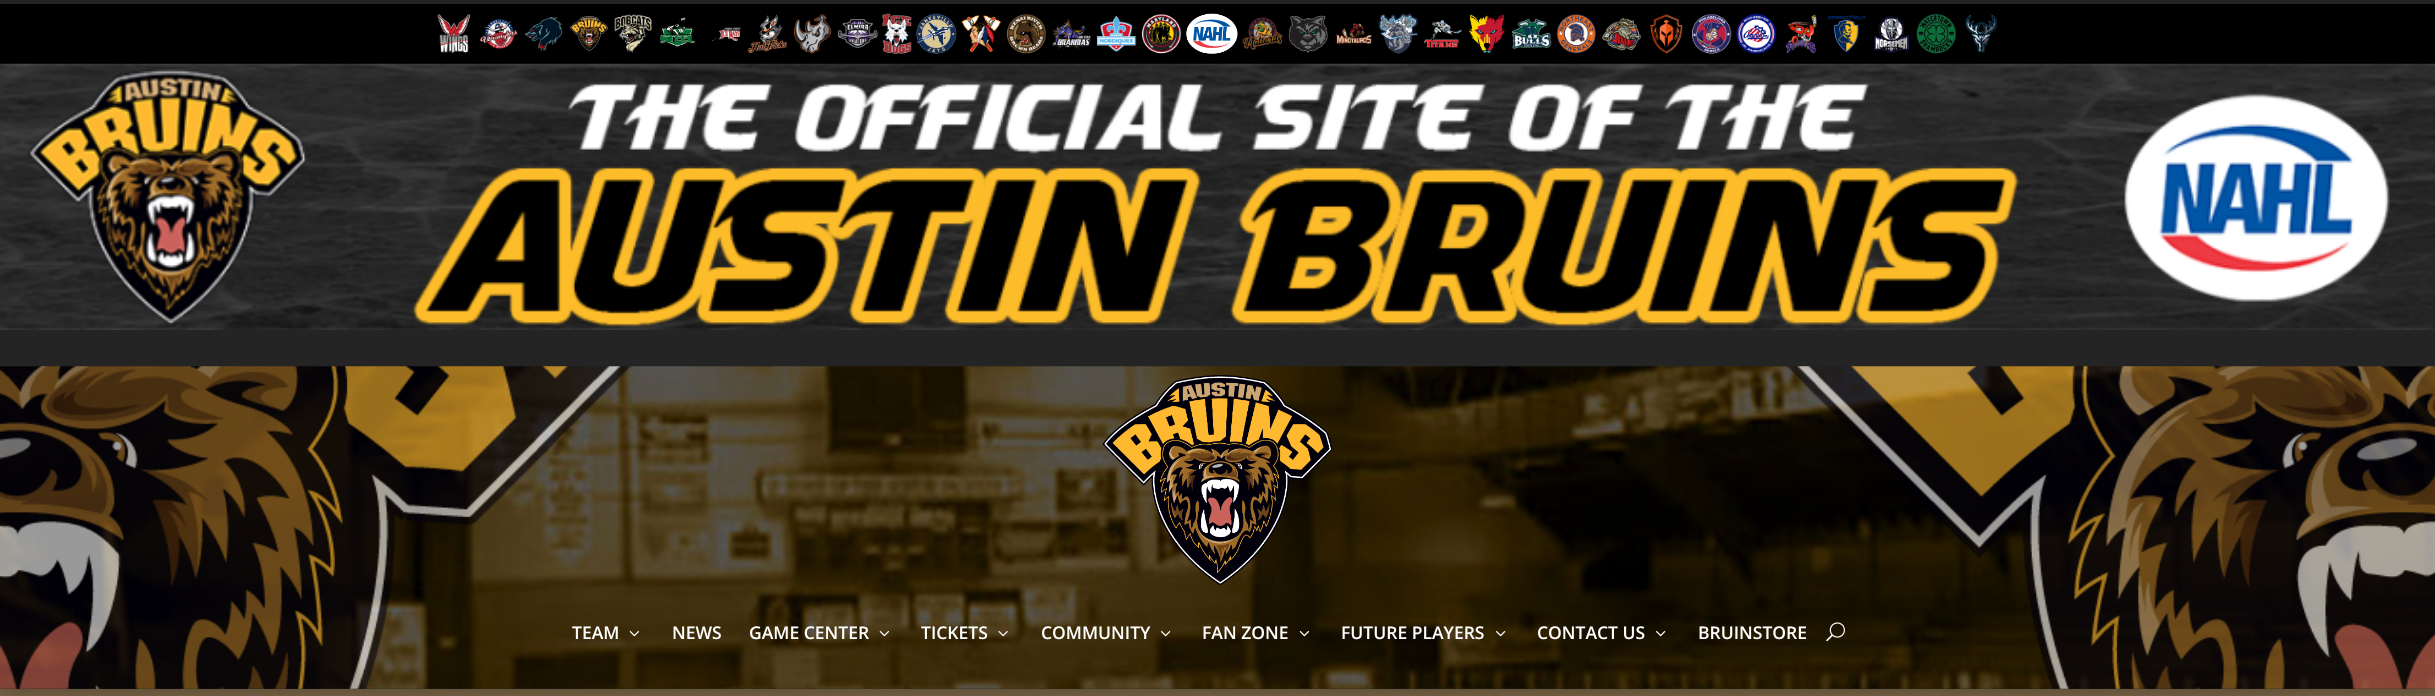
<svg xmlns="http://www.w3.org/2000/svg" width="2435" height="696">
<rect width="100%" height="100%" fill="#7a6447"/>
<rect y="3" width="2435" height="688" fill="#0000004d" filter="blur(11px)"/>
<rect width="2435" height="689" fill="#242424"/>
<rect y="4" width="2435" height="60" fill="#000"/>
<image x="437" y="14" width="34" height="40" href="media/1.png"/>
<image x="480" y="18" width="38" height="31" href="media/2.png"/>
<image x="525" y="17" width="38" height="34" href="media/3.png"/>
<image x="569" y="16" width="39" height="36" href="media/4.png"/>
<image x="614" y="14" width="38" height="39" href="media/5.png"/>
<image x="659" y="17" width="37" height="31" href="media/6.png"/>
<image x="711" y="27" width="30" height="14" href="media/7.png"/>
<image x="747" y="14" width="41" height="39" href="media/8.png"/>
<image x="794" y="13" width="38" height="41" href="media/9.png"/>
<image x="837" y="19" width="41" height="30" href="media/10.png"/>
<image x="882" y="13" width="30" height="41" href="media/11.png"/>
<image x="916" y="13" width="41" height="41" href="media/12.png"/>
<image x="961" y="15" width="41" height="38" href="media/13.png"/>
<image x="1007" y="14" width="40" height="40" href="media/14.png"/>
<image x="1052" y="18" width="40" height="31" href="media/15.png"/>
<image x="1097" y="15" width="40" height="37" href="media/16.png"/>
<image x="1142" y="14" width="40" height="40" href="media/17.png"/>
<image x="1186" y="13" width="52" height="41" href="media/18.png"/>
<image x="1242" y="17" width="41" height="33" href="media/19.png"/>
<image x="1288" y="15" width="40" height="38" href="media/20.png"/>
<image x="1335" y="23" width="38" height="23" href="media/21.png"/>
<image x="1378" y="13" width="40" height="41" href="media/22.png"/>
<image x="1424" y="20" width="38" height="28" href="media/23.png"/>
<image x="1469" y="14" width="36" height="39" href="media/24.png"/>
<image x="1512" y="18" width="40" height="31" href="media/25.png"/>
<image x="1556" y="13" width="41" height="41" href="media/26.png"/>
<image x="1602" y="17" width="40" height="34" href="media/27.png"/>
<image x="1650" y="14" width="33" height="40" href="media/28.png"/>
<image x="1692" y="14" width="40" height="40" href="media/29.png"/>
<image x="1736" y="13" width="41" height="41" href="media/30.png"/>
<image x="1786" y="14" width="31" height="39" href="media/31.png"/>
<image x="1827" y="15" width="39" height="38" href="media/32.png"/>
<image x="1874" y="16" width="35" height="37" href="media/33.png"/>
<image x="1916" y="13" width="41" height="41" href="media/34.png"/>
<image x="1965" y="14" width="33" height="39" href="media/35.png"/>
<image x="0" y="63" width="2435" height="267" href="media/36.png"/>
<image x="0" y="366" width="2435" height="323" href="media/37.png"/>
<image x="1102" y="375" width="231" height="210" href="media/38.png"/>
<text x="572" y="639" style="font-family:Open Sans;font-size:17.5px;font-weight:600;fill:#fff">TEAM</text>
<image x="629" y="631" width="10" height="6" href="media/39.png"/>
<text x="672" y="639" style="font-family:Open Sans;font-size:17.5px;font-weight:600;fill:#fff">NEWS</text>
<text x="749" y="639" style="font-family:Open Sans;font-size:17.5px;font-weight:600;fill:#fff">GAME CENTER</text>
<image x="879" y="631" width="10" height="6" href="media/40.png"/>
<text x="921" y="639" style="font-family:Open Sans;font-size:17.5px;font-weight:600;fill:#fff">TICKETS</text>
<image x="998" y="631" width="10" height="6" href="media/41.png"/>
<text x="1041" y="639" style="font-family:Open Sans;font-size:17.5px;font-weight:600;fill:#fff">COMMUNITY</text>
<image x="1161" y="631" width="10" height="6" href="media/42.png"/>
<text x="1202" y="639" style="font-family:Open Sans;font-size:17.5px;font-weight:600;fill:#fff">FAN ZONE</text>
<image x="1299" y="631" width="10" height="6" href="media/43.png"/>
<text x="1341" y="639" style="font-family:Open Sans;font-size:17.5px;font-weight:600;fill:#fff">FUTURE PLAYERS</text>
<image x="1496" y="631" width="10" height="6" href="media/44.png"/>
<text x="1537" y="639" style="font-family:Open Sans;font-size:17.5px;font-weight:600;fill:#fff">CONTACT US</text>
<image x="1656" y="631" width="10" height="6" href="media/45.png"/>
<text x="1698" y="639" style="font-family:Open Sans;font-size:17.5px;font-weight:600;fill:#fff">BRUINSTORE</text>
<image x="1826" y="622" width="19" height="20" href="media/46.png"/>
</svg>
